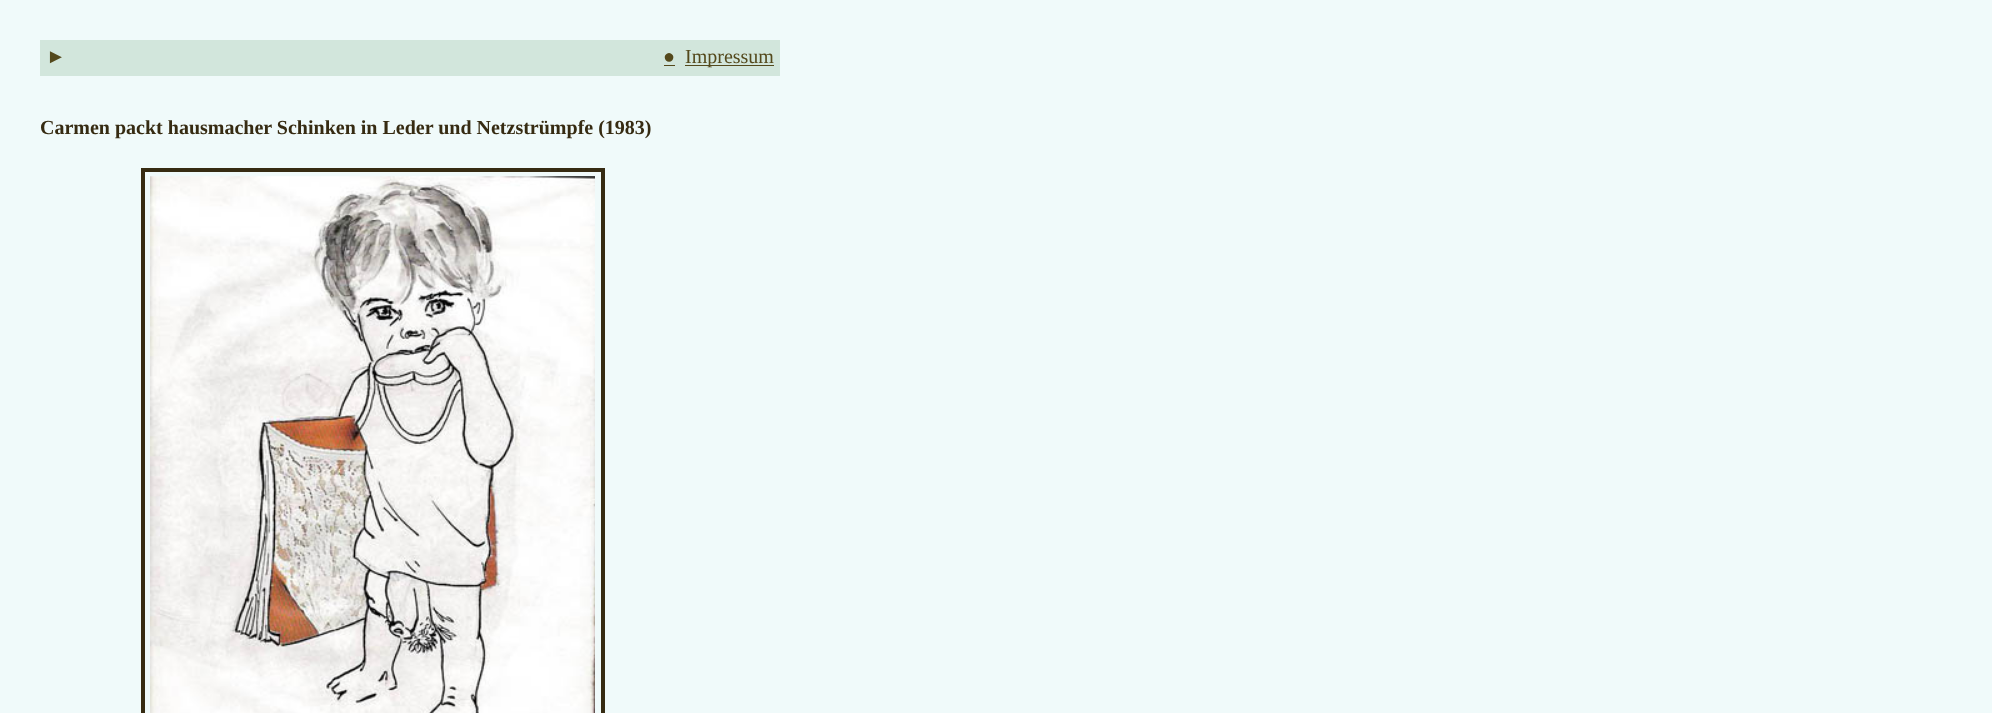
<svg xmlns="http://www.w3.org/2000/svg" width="1992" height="713">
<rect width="100%" height="100%" fill="#f0fafa"/>
<rect x="40" y="40" width="740" height="36" fill="#d2e6dc"/>
<text x="46" y="63" style="font-family:Liberation Serif;font-size:20px;fill:#54491c">►</text>
<text x="663" y="63" style="font-family:Liberation Serif;font-size:20px;fill:#54491c">●</text>
<rect x="664" y="65" width="11" height="1" fill="#54491c"/>
<rect x="685" y="65" width="89" height="1" fill="#54491c"/>
<text x="685" y="63" style="font-family:Liberation Serif;font-size:20px;fill:#54491c">Impressum</text>
<text x="40" y="134" style="font-family:Liberation Serif;font-size:20px;font-weight:bold;fill:#362b12">Carmen packt hausmacher Schinken in Leder und Netzstrümpfe (1983)</text>
<rect x="143" y="170" width="460" height="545" fill="none" stroke="#362b12" stroke-width="4"/>
<image x="150" y="176" width="445" height="537" href="media/1.png"/>
</svg>
